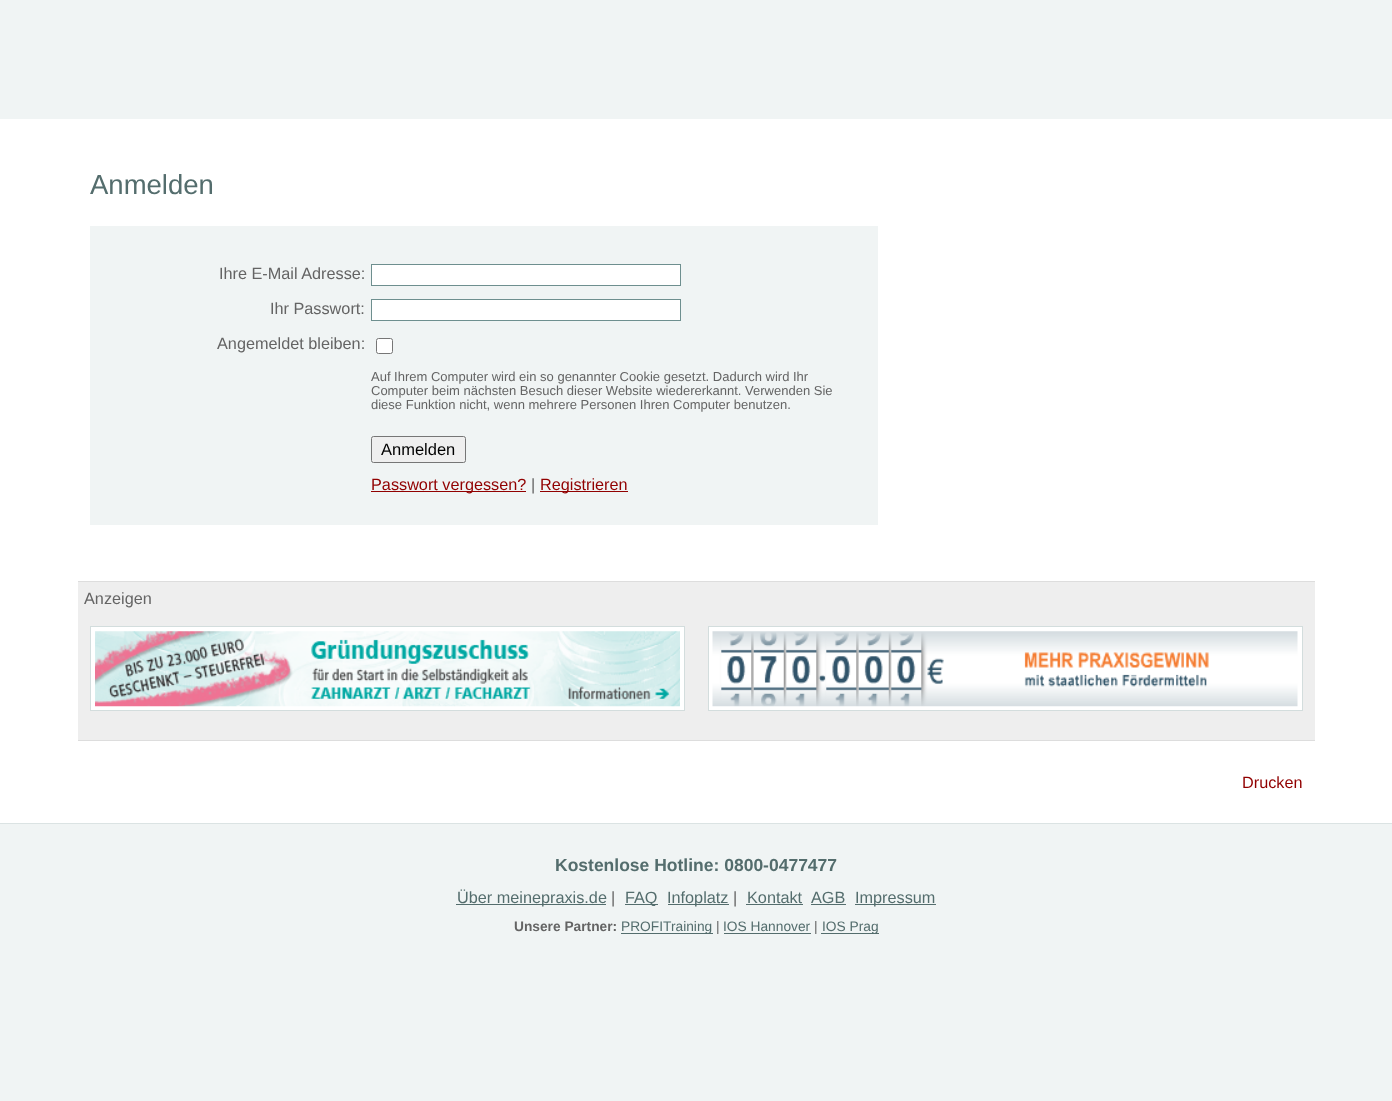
<svg xmlns="http://www.w3.org/2000/svg" width="1392" height="1101">
<rect width="100%" height="100%" fill="#f0f4f4"/>
<rect y="119" width="1392" height="704" fill="#fff"/>
<text x="90" y="194" style="font-family:Liberation Sans;font-size:27.5px;fill:#546d6d">Anmelden</text>
<rect x="90" y="226" width="788" height="299" fill="#f0f4f4"/>
<text x="219" y="279" style="font-family:Liberation Sans;font-size:16.25px;fill:#646464">Ihre E-Mail Adresse:</text>
<rect x="371.5" y="264.5" width="309" height="21" fill="#fff" stroke="#6e8f8f"/>
<text x="270" y="314" style="font-family:Liberation Sans;font-size:16.25px;fill:#646464">Ihr Passwort:</text>
<rect x="371.5" y="299.5" width="309" height="21" fill="#fff" stroke="#6e8f8f"/>
<text x="217" y="349" style="font-family:Liberation Sans;font-size:16.25px;fill:#646464">Angemeldet bleiben:</text>
<rect x="376.5" y="338.5" width="16" height="15" rx="2" fill="#fff" stroke="#767676"/>
<text x="371" y="381" style="font-family:Liberation Sans;font-size:13px;fill:#646464">Auf Ihrem Computer wird ein so genannter Cookie gesetzt. Dadurch wird Ihr</text>
<text x="371" y="395" style="font-family:Liberation Sans;font-size:13px;fill:#646464">Computer beim nächsten Besuch dieser Website wiedererkannt. Verwenden Sie</text>
<text x="371" y="409" style="font-family:Liberation Sans;font-size:13px;fill:#646464">diese Funktion nicht, wenn mehrere Personen Ihren Computer benutzen.</text>
<rect x="371.5" y="436.5" width="94" height="26" rx="2" fill="#efefef" stroke="#767676"/>
<text x="381" y="455" style="font-family:Liberation Sans;font-size:16.5px;fill:#000">Anmelden</text>
<rect x="371" y="491" width="155" height="1" fill="#910000"/>
<text x="371" y="490" style="font-family:Liberation Sans;font-size:16.25px;fill:#910000">Passwort vergessen?</text>
<text x="531" y="490" style="font-family:Liberation Sans;font-size:16.25px;fill:#646464">|</text>
<rect x="540" y="491" width="88" height="1" fill="#910000"/>
<text x="540" y="490" style="font-family:Liberation Sans;font-size:16.25px;fill:#910000">Registrieren</text>
<rect x="78" y="582" width="1237" height="158" fill="#eee"/>
<rect x="78" y="581" width="1237" height="1" fill="#ddd"/>
<rect x="78" y="740" width="1237" height="1" fill="#ddd"/>
<text x="84" y="604" style="font-family:Liberation Sans;font-size:16.25px;fill:#646464">Anzeigen</text>
<rect x="90.5" y="626.5" width="594" height="84" fill="#fff" stroke="#d3dddd"/>
<image x="95" y="631" width="585" height="76" href="media/1.png"/>
<rect x="708.5" y="626.5" width="594" height="84" fill="#fff" stroke="#d3dddd"/>
<image x="712" y="631" width="586" height="76" href="media/2.png"/>
<text x="1242" y="788" style="font-family:Liberation Sans;font-size:16.25px;fill:#910000">Drucken</text>
<rect y="823" width="1392" height="1" fill="#dbe3e3"/>
<text x="555" y="871" style="font-family:Liberation Sans;font-size:17.5px;font-weight:bold;fill:#546d6d">Kostenlose Hotline: 0800-0477477</text>
<rect x="456" y="904" width="150" height="1" fill="#546d6d"/>
<text x="457" y="903" style="font-family:Liberation Sans;font-size:16.25px;fill:#546d6d">Über meinepraxis.de</text>
<text x="611" y="903" style="font-family:Liberation Sans;font-size:16.25px;fill:#646464">|</text>
<rect x="625" y="904" width="33" height="1" fill="#546d6d"/>
<text x="625" y="903" style="font-family:Liberation Sans;font-size:16.25px;fill:#546d6d">FAQ</text>
<rect x="668" y="904" width="61" height="1" fill="#546d6d"/>
<text x="667" y="903" style="font-family:Liberation Sans;font-size:16.25px;fill:#546d6d">Infoplatz</text>
<text x="733" y="903" style="font-family:Liberation Sans;font-size:16.25px;fill:#646464">|</text>
<text x="747" y="903" style="font-family:Liberation Sans;font-size:16.25px;fill:#546d6d">Kontakt</text>
<rect x="746" y="904" width="57" height="1" fill="#546d6d"/>
<text x="811" y="903" style="font-family:Liberation Sans;font-size:16.25px;fill:#546d6d">AGB</text>
<rect x="811" y="904" width="35" height="1" fill="#546d6d"/>
<rect x="855" y="904" width="81" height="1" fill="#546d6d"/>
<text x="855" y="903" style="font-family:Liberation Sans;font-size:16.25px;fill:#546d6d">Impressum</text>
<text x="514" y="931" style="font-family:Liberation Sans;font-size:13.75px;font-weight:bold;fill:#646464">Unsere Partner:</text>
<rect x="621" y="933" width="92" height="1" fill="#546d6d"/>
<text x="621" y="931" style="font-family:Liberation Sans;font-size:13.75px;fill:#546d6d">PROFITraining</text>
<text x="716" y="931" style="font-family:Liberation Sans;font-size:13.75px;fill:#646464">|</text>
<text x="723" y="931" style="font-family:Liberation Sans;font-size:13.75px;fill:#546d6d">IOS Hannover</text>
<rect x="724" y="933" width="87" height="1" fill="#546d6d"/>
<text x="814" y="931" style="font-family:Liberation Sans;font-size:13.75px;fill:#646464">|</text>
<rect x="821" y="933" width="58" height="1" fill="#546d6d"/>
<text x="822" y="931" style="font-family:Liberation Sans;font-size:13.75px;fill:#546d6d">IOS Prag</text>
</svg>
